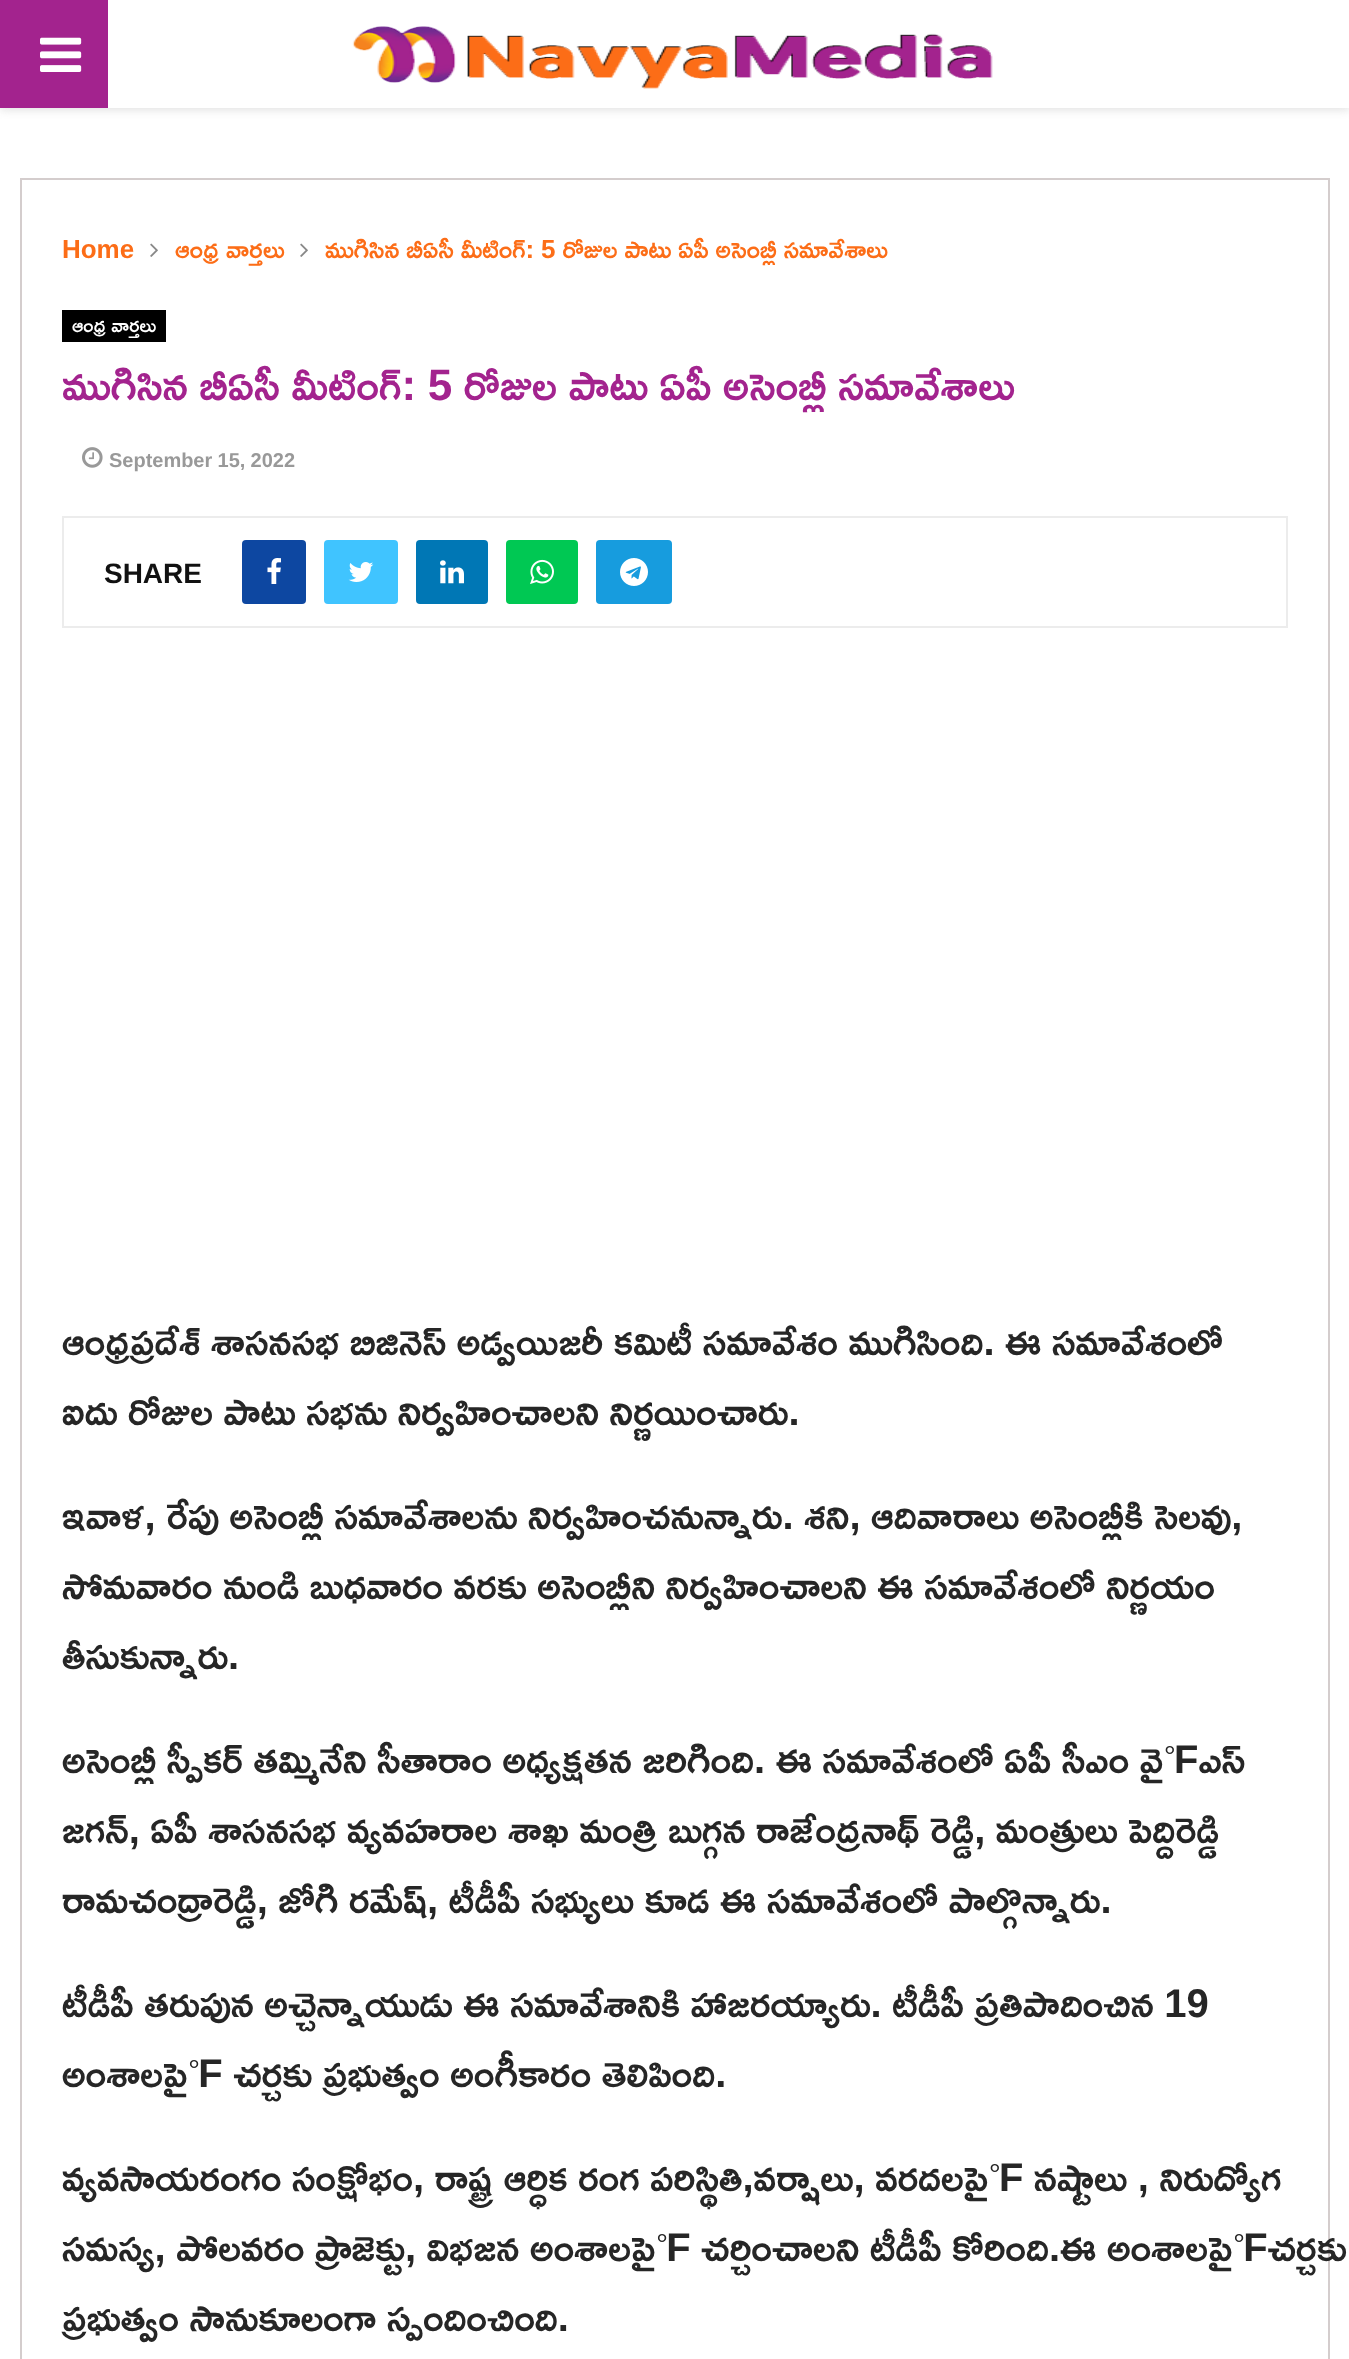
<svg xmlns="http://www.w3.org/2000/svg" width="1349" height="2359">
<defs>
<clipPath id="clip1"><rect x="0" y="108" width="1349" height="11"/></clipPath>
</defs>
<rect width="100%" height="100%" fill="#fff"/>
<g clip-path="url(#clip1)">
<rect y="2" width="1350" height="108" fill="#bebebe75" filter="blur(5px)"/>
</g>
<rect width="108" height="108" fill="#a3238e"/>
<image x="40" y="37" width="42" height="35" href="media/1.png"/>
<image x="352" y="26" width="641" height="63" href="media/2.png"/>
<rect x="21" y="179" width="1308" height="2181" fill="none" stroke="#d4cdcd" stroke-width="2"/>
<text x="62" y="258" style="font-family:Ramabhadra;font-size:26px;fill:#fc6d17">Home</text>
<image x="150" y="243" width="8" height="14" href="media/3.png"/>
<text x="175" y="258" style="font-family:Ramabhadra;font-size:26px;fill:#fc6d17">ఆంధ్ర వార్తలు</text>
<image x="300" y="243" width="8" height="14" href="media/3.png"/>
<text x="325" y="258" style="font-family:Ramabhadra;font-size:26px;fill:#fc6d17">ముగిసిన బీఏసీ మీటింగ్: 5 రోజుల పాటు ఏపీ అసెంబ్లీ సమావేశాలు</text>
<rect x="62" y="310" width="104" height="32" fill="#000"/>
<text x="72" y="332" style="font-family:Ramabhadra;font-size:20px;fill:#fff">ఆంధ్ర వార్తలు</text>
<text x="62" y="400" style="font-family:Ramabhadra;font-size:44px;fill:#a3238e">ముగిసిన బీఏసీ మీటింగ్: 5 రోజుల పాటు ఏపీ అసెంబ్లీ సమావేశాలు</text>
<image x="82" y="447" width="21" height="21" href="media/4.png"/>
<text x="109" y="467" style="font-family:Ramabhadra;font-size:20px;fill:#999">September 15, 2022</text>
<rect x="63" y="517" width="1224" height="110" fill="none" stroke="#ececec" stroke-width="2"/>
<text x="104" y="583" style="font-family:Ramabhadra;font-size:28px;fill:#111">SHARE</text>
<rect x="242" y="540" width="64" height="64" rx="4" fill="#0d47a1"/>
<image x="267" y="558" width="14" height="26" href="media/5.png"/>
<rect x="324" y="540" width="74" height="64" rx="4" fill="#40c4ff"/>
<image x="348" y="562" width="26" height="20" href="media/6.png"/>
<rect x="416" y="540" width="72" height="64" rx="4" fill="#0077b5"/>
<image x="440" y="560" width="24" height="24" href="media/7.png"/>
<rect x="506" y="540" width="72" height="64" rx="4" fill="#00c853"/>
<image x="530" y="559" width="24" height="25" href="media/8.png"/>
<rect x="596" y="540" width="76" height="64" rx="4" fill="#179cde"/>
<image x="620" y="558" width="28" height="28" href="media/9.png"/>
<text x="62" y="1355" style="font-family:Ramabhadra;font-size:40px;fill:#262626">ఆంధ్రప్రదేశ్ శాసనసభ బిజినెస్ అడ్వయిజరీ కమిటీ సమావేశం ముగిసింది. ఈ సమావేశంలో</text>
<text x="62" y="1425" style="font-family:Ramabhadra;font-size:40px;fill:#262626">ఐదు రోజుల పాటు సభను నిర్వహించాలని నిర్ణయించారు.</text>
<text x="62" y="1529" style="font-family:Ramabhadra;font-size:40px;fill:#262626">ఇవాళ, రేపు అసెంబ్లీ సమావేశాలను నిర్వహించనున్నారు. శని, ఆదివారాలు అసెంబ్లీకి సెలవు,</text>
<text x="62" y="1599" style="font-family:Ramabhadra;font-size:40px;fill:#262626">సోమవారం నుండి బుధవారం వరకు అసెంబ్లీని నిర్వహించాలని ఈ సమావేశంలో నిర్ణయం</text>
<text x="62" y="1669" style="font-family:Ramabhadra;font-size:40px;fill:#262626">తీసుకున్నారు.</text>
<text x="62" y="1773" style="font-family:Ramabhadra;font-size:40px;fill:#262626">అసెంబ్లీ స్పీకర్ తమ్మినేని సీతారాం అధ్యక్షతన జరిగింది. ఈ సమావేశంలో ఏపీ సీఎం వైఎస్</text>
<text x="62" y="1843" style="font-family:Ramabhadra;font-size:40px;fill:#262626">జగన్, ఏపీ శాసనసభ వ్యవహరాల శాఖ మంత్రి బుగ్గన రాజేంద్రనాథ్ రెడ్డి, మంత్రులు పెద్దిరెడ్డి</text>
<text x="62" y="1913" style="font-family:Ramabhadra;font-size:40px;fill:#262626">రామచంద్రారెడ్డి, జోగి రమేష్, టీడీపీ సభ్యులు కూడ ఈ సమావేశంలో పాల్గొన్నారు.</text>
<text x="62" y="2017" style="font-family:Ramabhadra;font-size:40px;fill:#262626">టీడీపీ తరుపున అచ్చెన్నాయుడు ఈ స‌మావేశానికి హాజరయ్యారు. టీడీపీ ప్రతిపాదించిన 19</text>
<text x="62" y="2087" style="font-family:Ramabhadra;font-size:40px;fill:#262626">అంశాలపై చర్చకు ప్రభుత్వం అంగీకారం తెలిపింది.</text>
<text x="62" y="2191" style="font-family:Ramabhadra;font-size:40px;fill:#262626">వ్యవసాయరంగం సంక్షోభం, రాష్ట్ర ఆర్ధిక రంగ పరిస్థితి,వర్షాలు, వరదలపై నష్టాలు , నిరుద్యోగ</text>
<text x="62" y="2261" style="font-family:Ramabhadra;font-size:40px;fill:#262626">సమస్య, పోలవరం ప్రాజెక్టు, విభజన అంశాలపై చర్చించాలని టీడీపీ కోరింది.ఈ అంశాలపైచర్చకు</text>
<text x="62" y="2331" style="font-family:Ramabhadra;font-size:40px;fill:#262626">ప్రభుత్వం సానుకూలంగా స్పందించింది.</text>
</svg>
